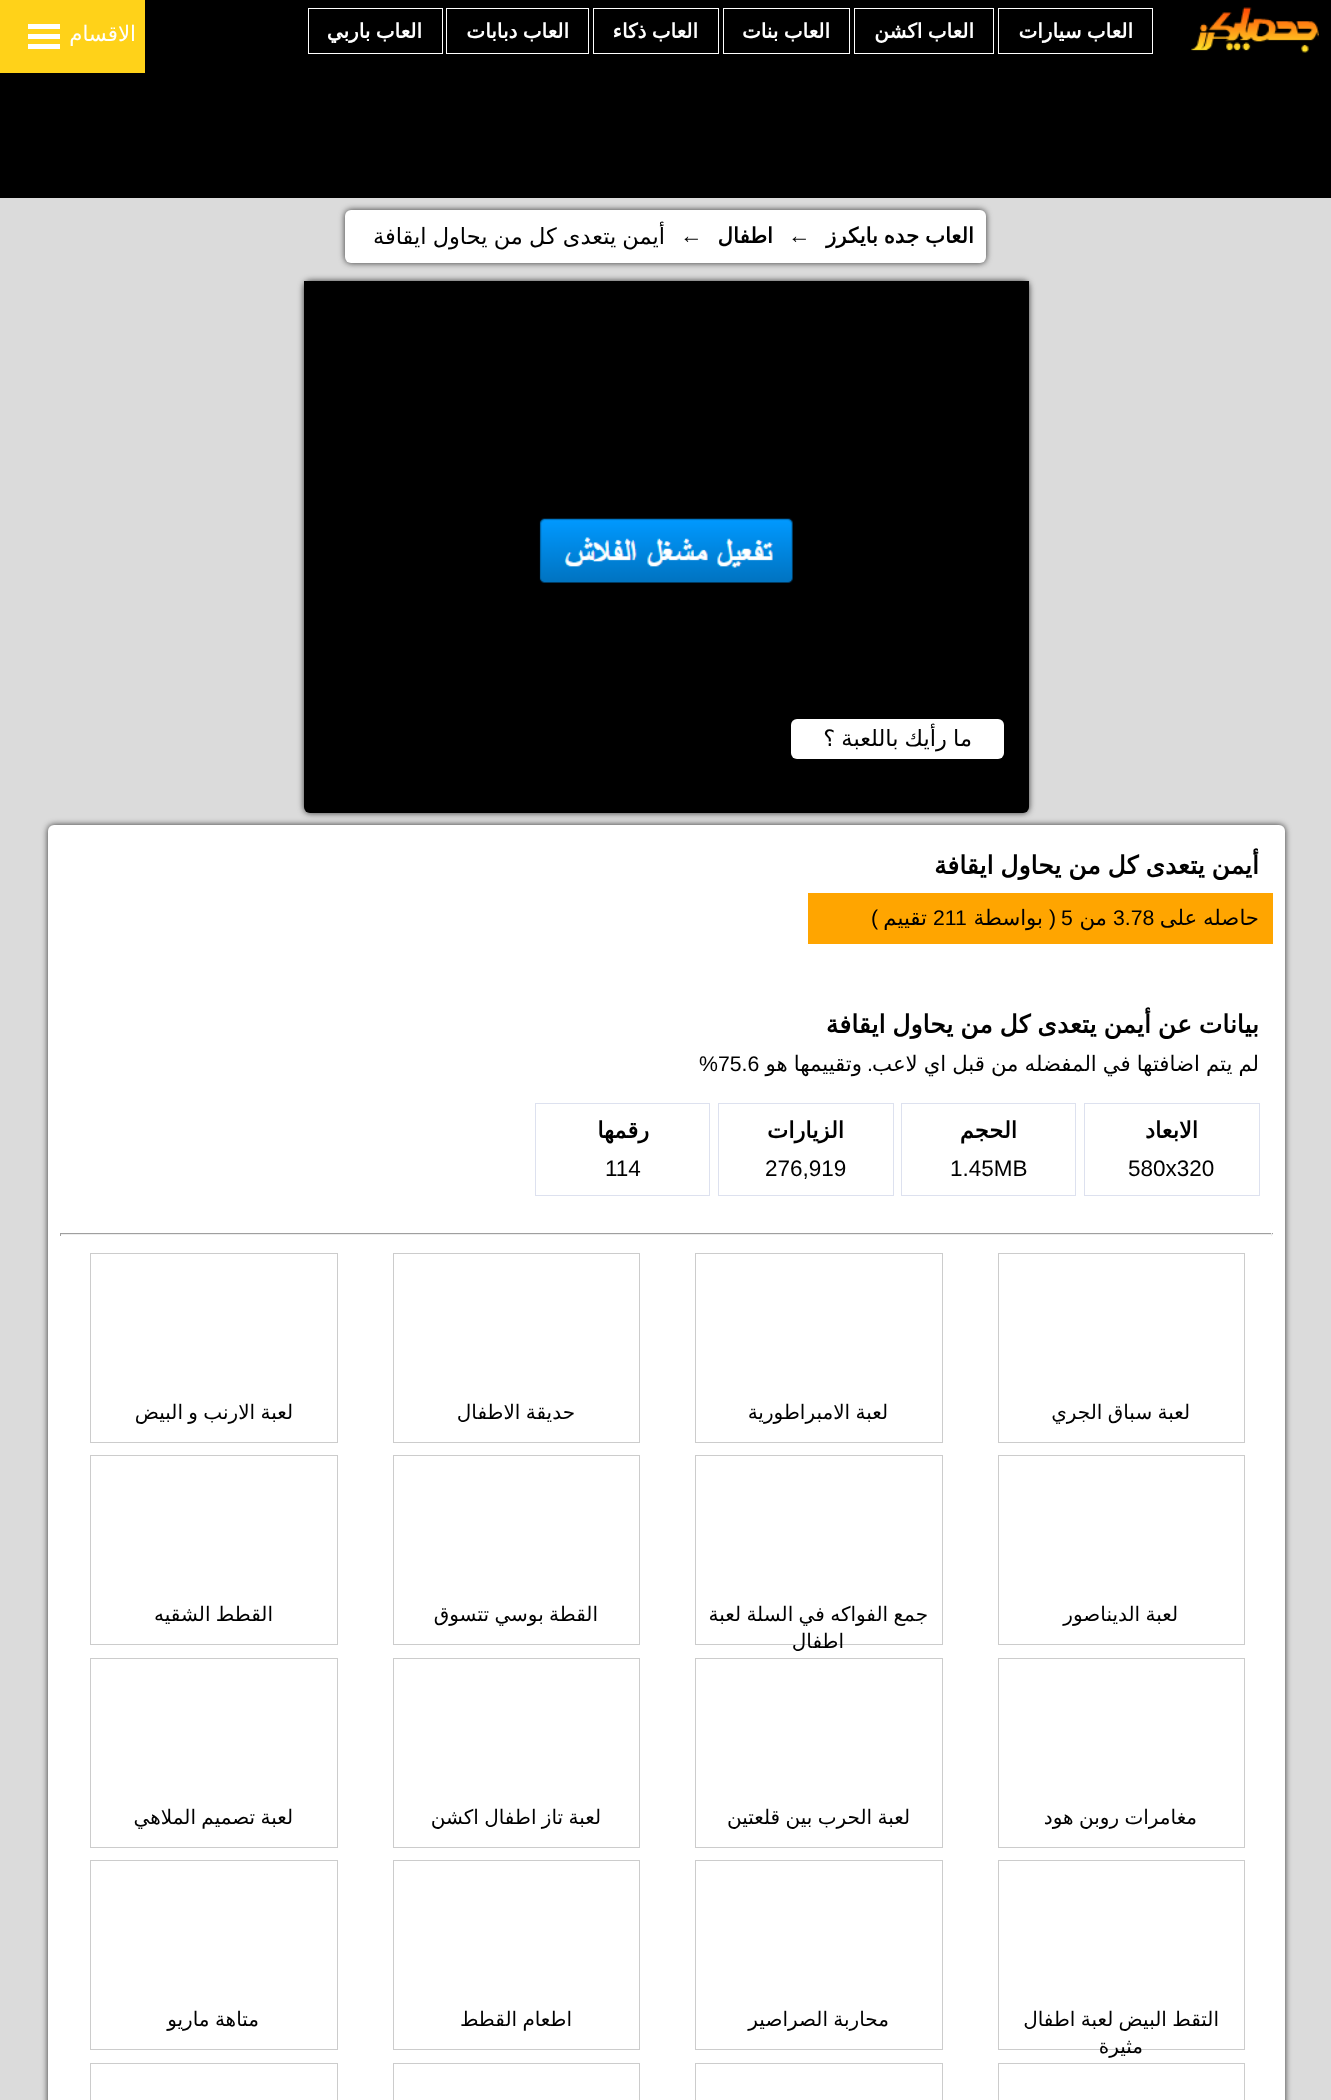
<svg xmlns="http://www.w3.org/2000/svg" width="1331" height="2100">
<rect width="100%" height="100%" fill="#dbdbdb"/>
<rect y="73" width="1331" height="125" fill="#000"/>
<rect x="-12" y="-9" width="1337" height="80" fill="#00000033" filter="blur(4px)"/>
<rect y="3" width="1331" height="72" fill="#00000033" filter="blur(3px)"/>
<rect x="145" width="1186" height="73" fill="#000"/>
<image x="1191" y="7" width="128" height="46" href="media/1.png"/>
<rect x="998.5" y="8.5" width="154" height="45" fill="none" stroke="#fff"/>
<text x="1133" y="38" word-spacing="-1" style="font-family:DejaVu Sans;font-size:20px;font-weight:bold;direction:rtl;fill:#fff">العاب سيارات</text>
<rect x="854.5" y="8.5" width="139" height="45" fill="none" stroke="#fff"/>
<text x="974" y="38" word-spacing="-1" style="font-family:DejaVu Sans;font-size:20px;font-weight:bold;direction:rtl;fill:#fff">العاب اكشن</text>
<rect x="723.5" y="8.5" width="126" height="45" fill="none" stroke="#fff"/>
<text x="830" y="38" word-spacing="-1" style="font-family:DejaVu Sans;font-size:20px;font-weight:bold;direction:rtl;fill:#fff">العاب بنات</text>
<rect x="593.5" y="8.5" width="125" height="45" fill="none" stroke="#fff"/>
<text x="698" y="38" word-spacing="-1" style="font-family:DejaVu Sans;font-size:20px;font-weight:bold;direction:rtl;fill:#fff">العاب ذكاء</text>
<rect x="446.5" y="8.5" width="142" height="45" fill="none" stroke="#fff"/>
<text x="569" y="38" word-spacing="-1" style="font-family:DejaVu Sans;font-size:20px;font-weight:bold;direction:rtl;fill:#fff">العاب دبابات</text>
<rect x="308.5" y="8.5" width="134" height="45" fill="none" stroke="#fff"/>
<text x="422" y="38" word-spacing="-1" style="font-family:DejaVu Sans;font-size:20px;font-weight:bold;direction:rtl;fill:#fff">العاب باربي</text>
<rect width="145" height="73" fill="#ffd219"/>
<text x="136" y="41" style="font-family:DejaVu Sans;font-size:21.25px;direction:rtl;fill:#fff">الاقسام</text>
<rect x="28" y="34" width="32" height="5" fill="#fff"/>
<rect x="28" y="24" width="32" height="5" fill="#fff"/>
<rect x="28" y="44" width="32" height="5" fill="#fff"/>
<rect x="345" y="210" width="641" height="53" rx="6" fill="#333" filter="blur(3px)"/>
<rect x="345" y="210" width="641" height="53" rx="6" fill="#fff"/>
<text x="974" y="243" word-spacing="-1" style="font-family:DejaVu Sans;font-size:21.25px;font-weight:bold;direction:rtl;fill:#000">العاب جده بايكرز</text>
<text x="788" y="243" style="font-family:Liberation Sans;font-size:22.5px;fill:#000">←</text>
<text x="773" y="243" style="font-family:DejaVu Sans;font-size:21.25px;font-weight:bold;direction:rtl;fill:#000">اطفال</text>
<text x="680" y="243" style="font-family:Liberation Sans;font-size:22.5px;fill:#000">←</text>
<text x="665" y="244" word-spacing="-1" style="font-family:DejaVu Sans;font-size:22.5px;direction:rtl;fill:#000">أيمن يتعدى كل من يحاول ايقافة</text>
<rect x="304" y="281" width="725" height="532" rx="6" fill="#333" filter="blur(3px)"/>
<rect x="304" y="281" width="725" height="532" rx="6" fill="#000"/>
<rect x="304" y="281" width="725" height="6" fill="#000"/>
<image x="539" y="518" width="254" height="65" href="media/2.png"/>
<rect x="791" y="719" width="213" height="40" rx="6" fill="#fff"/>
<text x="972" y="746" word-spacing="-1" style="font-family:DejaVu Sans;font-size:22.5px;direction:rtl;fill:#000">ما رأيك باللعبة ؟</text>
<rect x="48" y="825" width="1237" height="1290" rx="6" fill="#333" filter="blur(3px)"/>
<rect x="48" y="825" width="1237" height="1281" rx="6" fill="#fff"/>
<text x="1259" y="874" word-spacing="-1" style="font-family:DejaVu Sans;font-size:25px;font-weight:bold;direction:rtl;fill:#000">أيمن يتعدى كل من يحاول ايقافة</text>
<rect x="808" y="893" width="465" height="51" fill="#ffa500"/>
<text x="1259" y="925" word-spacing="-1" style="font-family:DejaVu Sans;font-size:21.25px;direction:rtl;fill:#000">حاصله على</text>
<text x="1113" y="925" style="font-family:Liberation Sans;font-size:21.25px;fill:#000">3.78</text>
<text x="1107" y="925" style="font-family:DejaVu Sans;font-size:21.25px;direction:rtl;fill:#000">من</text>
<text x="1061" y="925" style="font-family:Liberation Sans;font-size:21.25px;fill:#000">5</text>
<text x="1056" y="925" style="font-family:Liberation Sans;font-size:21.25px;direction:rtl;fill:#000">(</text>
<text x="1043" y="925" style="font-family:DejaVu Sans;font-size:21.25px;direction:rtl;fill:#000">بواسطة</text>
<text x="933" y="925" style="font-family:Liberation Sans;font-size:21.25px;fill:#000">211</text>
<text x="927" y="925" style="font-family:DejaVu Sans;font-size:21.25px;direction:rtl;fill:#000">تقييم</text>
<text x="878" y="925" style="font-family:Liberation Sans;font-size:21.25px;direction:rtl;fill:#000">)</text>
<text x="1259" y="1033" word-spacing="-1" style="font-family:DejaVu Sans;font-size:25px;font-weight:bold;direction:rtl;fill:#000">بيانات عن أيمن يتعدى كل من يحاول ايقافة</text>
<text x="1259" y="1071" word-spacing="-0.75" style="font-family:DejaVu Sans;font-size:21.25px;direction:rtl;fill:#000">لم يتم اضافتها في المفضله من قبل اي لاعب</text>
<text x="873" y="1071" style="font-family:Liberation Sans;font-size:21.25px;direction:rtl;fill:#000">.</text>
<text x="862" y="1071" word-spacing="-0.75" style="font-family:DejaVu Sans;font-size:21.25px;direction:rtl;fill:#000">وتقييمها هو</text>
<text x="699" y="1071" style="font-family:Liberation Sans;font-size:21.25px;fill:#000">%75.6</text>
<rect x="1084.5" y="1103.5" width="175" height="92" fill="none" stroke="#dde1ef"/>
<text x="1198" y="1138" style="font-family:DejaVu Sans;font-size:22.5px;font-weight:bold;direction:rtl;fill:#000">الابعاد</text>
<text x="1128" y="1176" style="font-family:Liberation Sans;font-size:22.5px;fill:#000">580x320</text>
<rect x="901.5" y="1103.5" width="174" height="92" fill="none" stroke="#dde1ef"/>
<text x="1017" y="1138" style="font-family:DejaVu Sans;font-size:22.5px;font-weight:bold;direction:rtl;fill:#000">الحجم</text>
<text x="950" y="1176" style="font-family:Liberation Sans;font-size:22.5px;fill:#000">1.45MB</text>
<rect x="718.5" y="1103.5" width="175" height="92" fill="none" stroke="#dde1ef"/>
<text x="844" y="1138" style="font-family:DejaVu Sans;font-size:22.5px;font-weight:bold;direction:rtl;fill:#000">الزيارات</text>
<text x="765" y="1176" style="font-family:Liberation Sans;font-size:22.5px;fill:#000">276,919</text>
<rect x="535.5" y="1103.5" width="174" height="92" fill="none" stroke="#dde1ef"/>
<text x="649" y="1138" style="font-family:DejaVu Sans;font-size:22.5px;font-weight:bold;direction:rtl;fill:#000">رقمها</text>
<text x="605" y="1176" style="font-family:Liberation Sans;font-size:22.5px;fill:#000">114</text>
<rect x="60" y="1233" width="1213" height="1" fill="#9f9f9f"/>
<rect x="1271" y="1233" width="1" height="3" fill="#eee"/>
<rect x="60" y="1234" width="1213" height="1" fill="#eee"/>
<rect x="60" y="1233" width="1" height="3" fill="#9f9f9f"/>
<rect x="998.5" y="1253.5" width="246" height="189" fill="none" stroke="#ccc"/>
<text x="1190" y="1419" word-spacing="-1" style="font-family:DejaVu Sans;font-size:20px;direction:rtl;fill:#000">لعبة سباق الجري</text>
<rect x="695.5" y="1253.5" width="247" height="189" fill="none" stroke="#ccc"/>
<text x="888" y="1419" word-spacing="-1" style="font-family:DejaVu Sans;font-size:20px;direction:rtl;fill:#000">لعبة الامبراطورية</text>
<rect x="393.5" y="1253.5" width="246" height="189" fill="none" stroke="#ccc"/>
<text x="575" y="1419" word-spacing="-1" style="font-family:DejaVu Sans;font-size:20px;direction:rtl;fill:#000">حديقة الاطفال</text>
<rect x="90.5" y="1253.5" width="247" height="189" fill="none" stroke="#ccc"/>
<text x="293" y="1419" word-spacing="-1" style="font-family:DejaVu Sans;font-size:20px;direction:rtl;fill:#000">لعبة الارنب و البيض</text>
<rect x="998.5" y="1455.5" width="246" height="189" fill="none" stroke="#ccc"/>
<text x="1178" y="1621" word-spacing="-1" style="font-family:DejaVu Sans;font-size:20px;direction:rtl;fill:#000">لعبة الديناصور</text>
<rect x="695.5" y="1455.5" width="247" height="189" fill="none" stroke="#ccc"/>
<text x="928" y="1621" word-spacing="-1" style="font-family:DejaVu Sans;font-size:20px;direction:rtl;fill:#000">جمع الفواكه في السلة لعبة</text>
<text x="844" y="1648" style="font-family:DejaVu Sans;font-size:20px;direction:rtl;fill:#000">اطفال</text>
<rect x="393.5" y="1455.5" width="246" height="189" fill="none" stroke="#ccc"/>
<text x="598" y="1621" word-spacing="-1" style="font-family:DejaVu Sans;font-size:20px;direction:rtl;fill:#000">القطة بوسي تتسوق</text>
<rect x="90.5" y="1455.5" width="247" height="189" fill="none" stroke="#ccc"/>
<text x="273" y="1621" word-spacing="-1" style="font-family:DejaVu Sans;font-size:20px;direction:rtl;fill:#000">القطط الشقيه</text>
<rect x="998.5" y="1658.5" width="246" height="189" fill="none" stroke="#ccc"/>
<text x="1197" y="1824" word-spacing="-1" style="font-family:DejaVu Sans;font-size:20px;direction:rtl;fill:#000">مغامرات روبن هود</text>
<rect x="695.5" y="1658.5" width="247" height="189" fill="none" stroke="#ccc"/>
<text x="910" y="1824" word-spacing="-1" style="font-family:DejaVu Sans;font-size:20px;direction:rtl;fill:#000">لعبة الحرب بين قلعتين</text>
<rect x="393.5" y="1658.5" width="246" height="189" fill="none" stroke="#ccc"/>
<text x="601" y="1824" word-spacing="-1" style="font-family:DejaVu Sans;font-size:20px;direction:rtl;fill:#000">لعبة تاز اطفال اكشن</text>
<rect x="90.5" y="1658.5" width="247" height="189" fill="none" stroke="#ccc"/>
<text x="293" y="1824" word-spacing="-1" style="font-family:DejaVu Sans;font-size:20px;direction:rtl;fill:#000">لعبة تصميم الملاهي</text>
<rect x="998.5" y="1860.5" width="246" height="189" fill="none" stroke="#ccc"/>
<text x="1219" y="2026" word-spacing="-1" style="font-family:DejaVu Sans;font-size:20px;direction:rtl;fill:#000">التقط البيض لعبة اطفال</text>
<text x="1143" y="2053" style="font-family:DejaVu Sans;font-size:20px;direction:rtl;fill:#000">مثيرة</text>
<rect x="695.5" y="1860.5" width="247" height="189" fill="none" stroke="#ccc"/>
<text x="889" y="2026" word-spacing="-1" style="font-family:DejaVu Sans;font-size:20px;direction:rtl;fill:#000">محاربة الصراصير</text>
<rect x="393.5" y="1860.5" width="246" height="189" fill="none" stroke="#ccc"/>
<text x="572" y="2026" word-spacing="-1" style="font-family:DejaVu Sans;font-size:20px;direction:rtl;fill:#000">اطعام القطط</text>
<rect x="90.5" y="1860.5" width="247" height="189" fill="none" stroke="#ccc"/>
<text x="259" y="2026" word-spacing="-1" style="font-family:DejaVu Sans;font-size:20px;direction:rtl;fill:#000">متاهة ماريو</text>
<rect x="998.5" y="2063.5" width="246" height="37" fill="none" stroke="#ccc"/>
<rect x="695.5" y="2063.5" width="247" height="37" fill="none" stroke="#ccc"/>
<rect x="393.5" y="2063.5" width="246" height="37" fill="none" stroke="#ccc"/>
<rect x="90.5" y="2063.5" width="247" height="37" fill="none" stroke="#ccc"/>
</svg>
